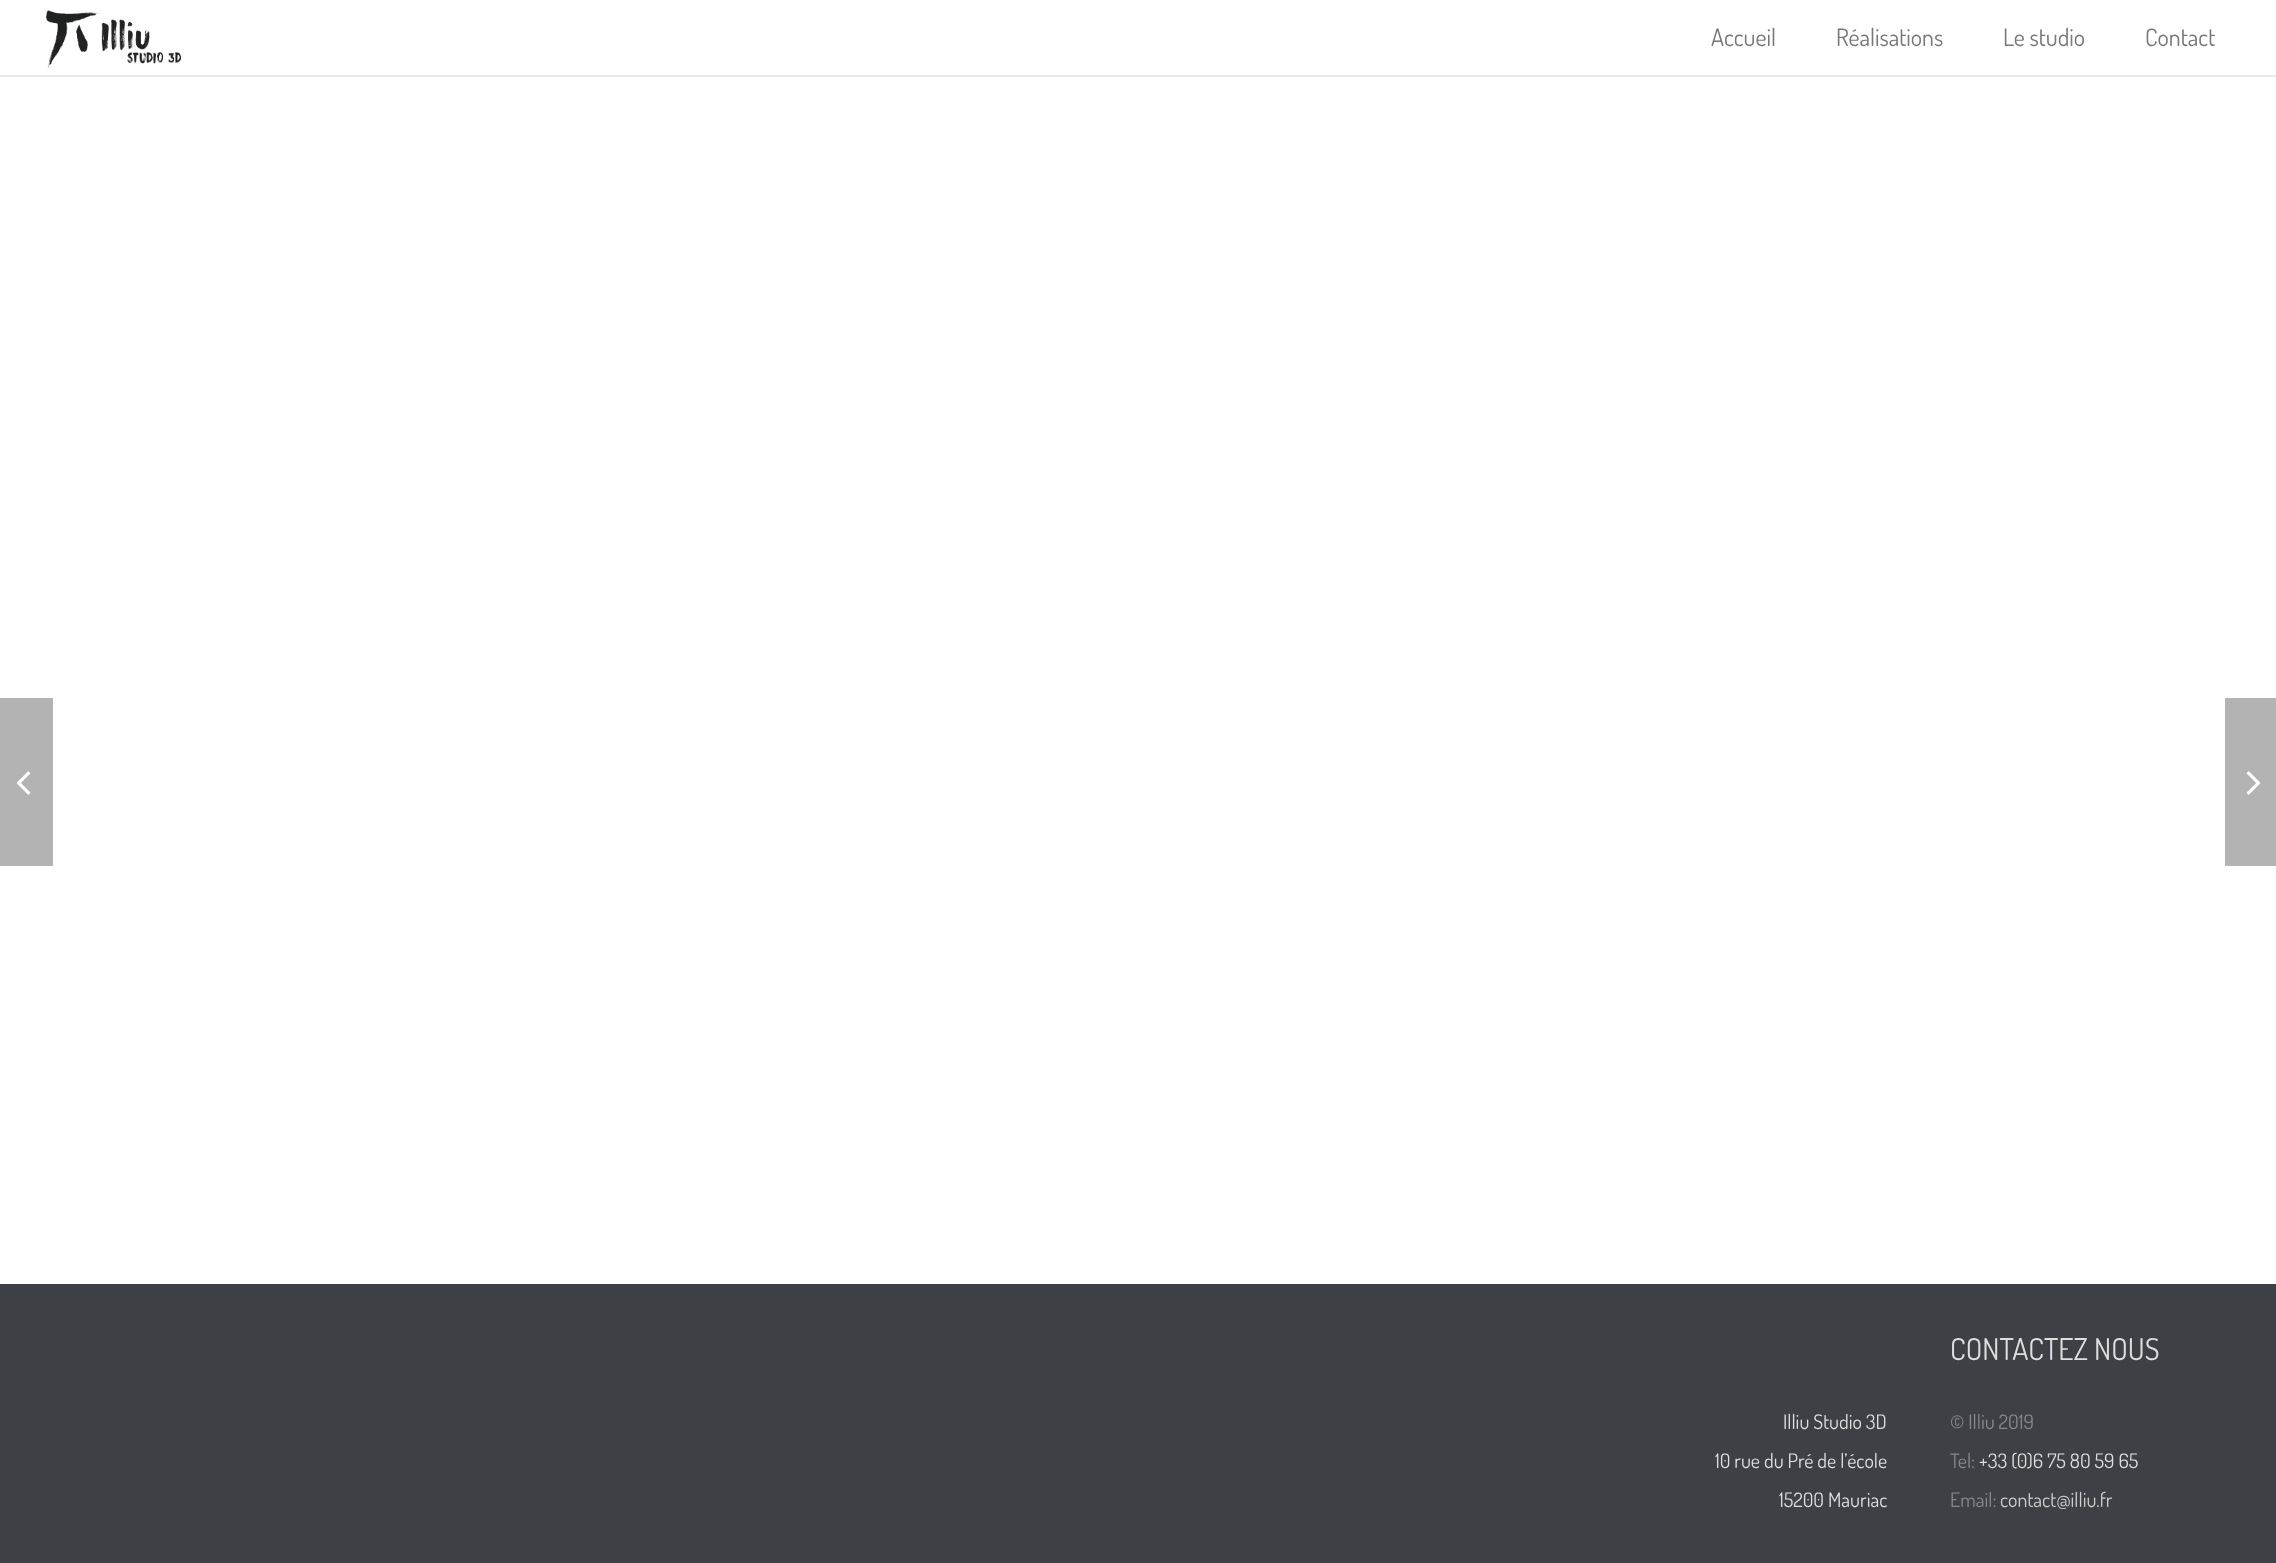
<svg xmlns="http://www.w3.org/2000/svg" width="2276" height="1563">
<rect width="100%" height="100%" fill="#fff"/>
<rect y="75" width="2276" height="2" fill="#ebebeb"/>
<image x="46" y="10" width="136" height="58" href="media/1.png"/>
<text x="1711" y="46" style="font-family:Dosis;font-size:24px;fill:#777">Accueil</text>
<text x="1836" y="46" style="font-family:Dosis;font-size:24px;fill:#777">Réalisations</text>
<text x="2003" y="46" style="font-family:Dosis;font-size:24px;fill:#777">Le studio</text>
<text x="2145" y="46" style="font-family:Dosis;font-size:24px;fill:#777">Contact</text>
<rect y="698" width="53" height="168" fill="#b3b3b3"/>
<image x="16" y="771" width="15" height="24" href="media/2.png"/>
<rect x="2225" y="698" width="51" height="168" fill="#b3b3b3"/>
<image x="2246" y="771" width="15" height="24" href="media/3.png"/>
<rect y="1284" width="2276" height="279" fill="#3d4045"/>
<text x="1950" y="1360" style="font-family:Dosis;font-size:30px;fill:#dedede">CONTACTEZ NOUS</text>
<text x="1783" y="1429" style="font-family:Dosis;font-size:20px;fill:#dedede">Illiu Studio 3D</text>
<text x="1715" y="1468" style="font-family:Dosis;font-size:20px;fill:#dedede">10 rue du Pré de l’école</text>
<text x="1779" y="1507" style="font-family:Dosis;font-size:20px;fill:#dedede">15200 Mauriac</text>
<text x="1950" y="1429" style="font-family:Dosis;font-size:20px;fill:#888">© Illiu 2019</text>
<text x="1950" y="1468" style="font-family:Dosis;font-size:20px;fill:#888">Tel:</text>
<text x="1979" y="1468" style="font-family:Dosis;font-size:20px;fill:#dedede">+33 (0)6 75 80 59 65</text>
<text x="1950" y="1507" style="font-family:Dosis;font-size:20px;fill:#888">Email:</text>
<text x="2000" y="1507" style="font-family:Dosis;font-size:20px;fill:#ccc">contact@illiu.fr</text>
</svg>
